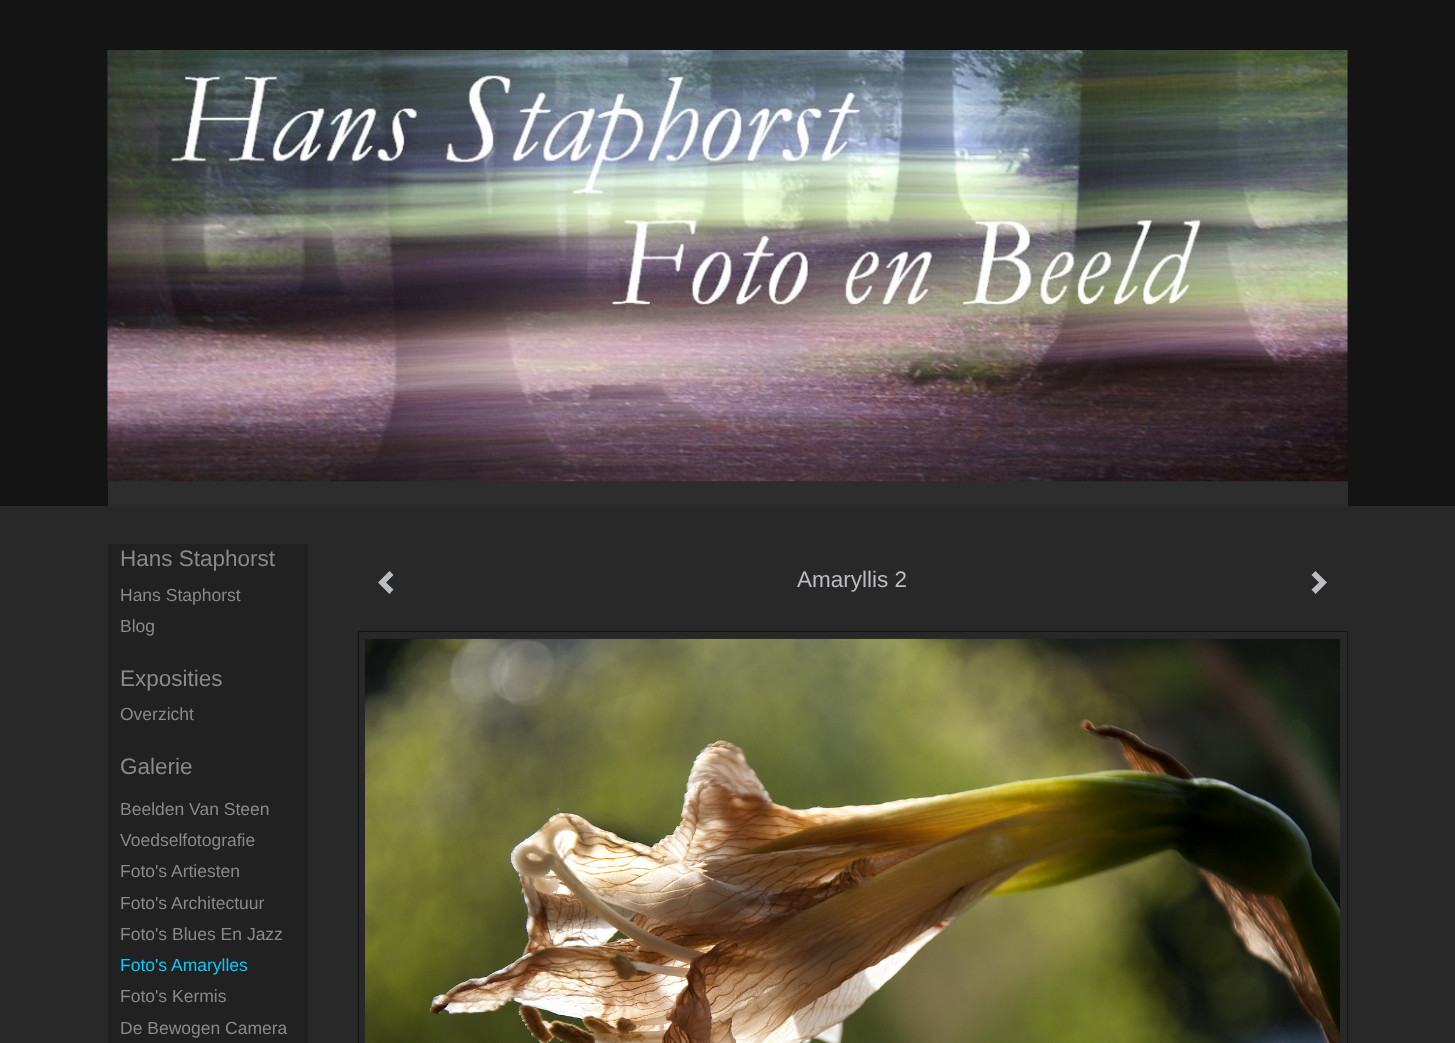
<svg xmlns="http://www.w3.org/2000/svg" width="1455" height="1043">
<rect width="100%" height="100%" fill="#282828"/>
<rect width="1455" height="506" fill="#141414"/>
<rect x="108" y="481" width="1240" height="25" fill="#2d2d2d"/>
<image x="107" y="50" width="1241" height="432" href="media/1.png"/>
<rect x="108" y="544" width="200" height="499" fill="#212121"/>
<text x="120" y="566" style="font-family:Liberation Sans;font-size:22.5px;fill:#89898b">Hans Staphorst</text>
<text x="120" y="601" style="font-family:Liberation Sans;font-size:17.5px;fill:#89898b">Hans Staphorst</text>
<text x="120" y="632" style="font-family:Liberation Sans;font-size:17.5px;fill:#89898b">Blog</text>
<text x="120" y="686" style="font-family:Liberation Sans;font-size:22.5px;fill:#89898b">Exposities</text>
<text x="120" y="720" style="font-family:Liberation Sans;font-size:17.5px;fill:#89898b">Overzicht</text>
<text x="120" y="774" style="font-family:Liberation Sans;font-size:22.5px;fill:#89898b">Galerie</text>
<text x="120" y="815" style="font-family:Liberation Sans;font-size:17.5px;fill:#89898b">Beelden Van Steen</text>
<text x="120" y="846" style="font-family:Liberation Sans;font-size:17.5px;fill:#89898b">Voedselfotografie</text>
<text x="120" y="877" style="font-family:Liberation Sans;font-size:17.5px;fill:#89898b">Foto's Artiesten</text>
<text x="120" y="909" style="font-family:Liberation Sans;font-size:17.5px;fill:#89898b">Foto's Architectuur</text>
<text x="120" y="940" style="font-family:Liberation Sans;font-size:17.5px;fill:#89898b">Foto's Blues En Jazz</text>
<text x="120" y="971" style="font-family:Liberation Sans;font-size:17.5px;fill:#0cf">Foto's Amarylles</text>
<text x="120" y="1002" style="font-family:Liberation Sans;font-size:17.5px;fill:#89898b">Foto's Kermis</text>
<text x="120" y="1034" style="font-family:Liberation Sans;font-size:17.5px;fill:#89898b">De Bewogen Camera</text>
<path d="M393.5 575l-7.5 7.5l7.5 7l-4 4.5l-11.5-11.5l11.5-11.5z" fill="#bcbdc0"/>
<text x="797" y="587" style="font-family:Liberation Sans;font-size:22.5px;fill:#bcbdc0">Amaryllis 2</text>
<path d="M1327 582.5l-11.5 11.5l-4-4.5l7.5-7l-7.5-7.5l4-4z" fill="#bcbdc0"/>
<rect x="358.5" y="631.5" width="989" height="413" rx="0.5" fill="none" stroke="#141414"/>
<image x="365" y="638" width="975" height="405" href="media/2.png"/>
</svg>
